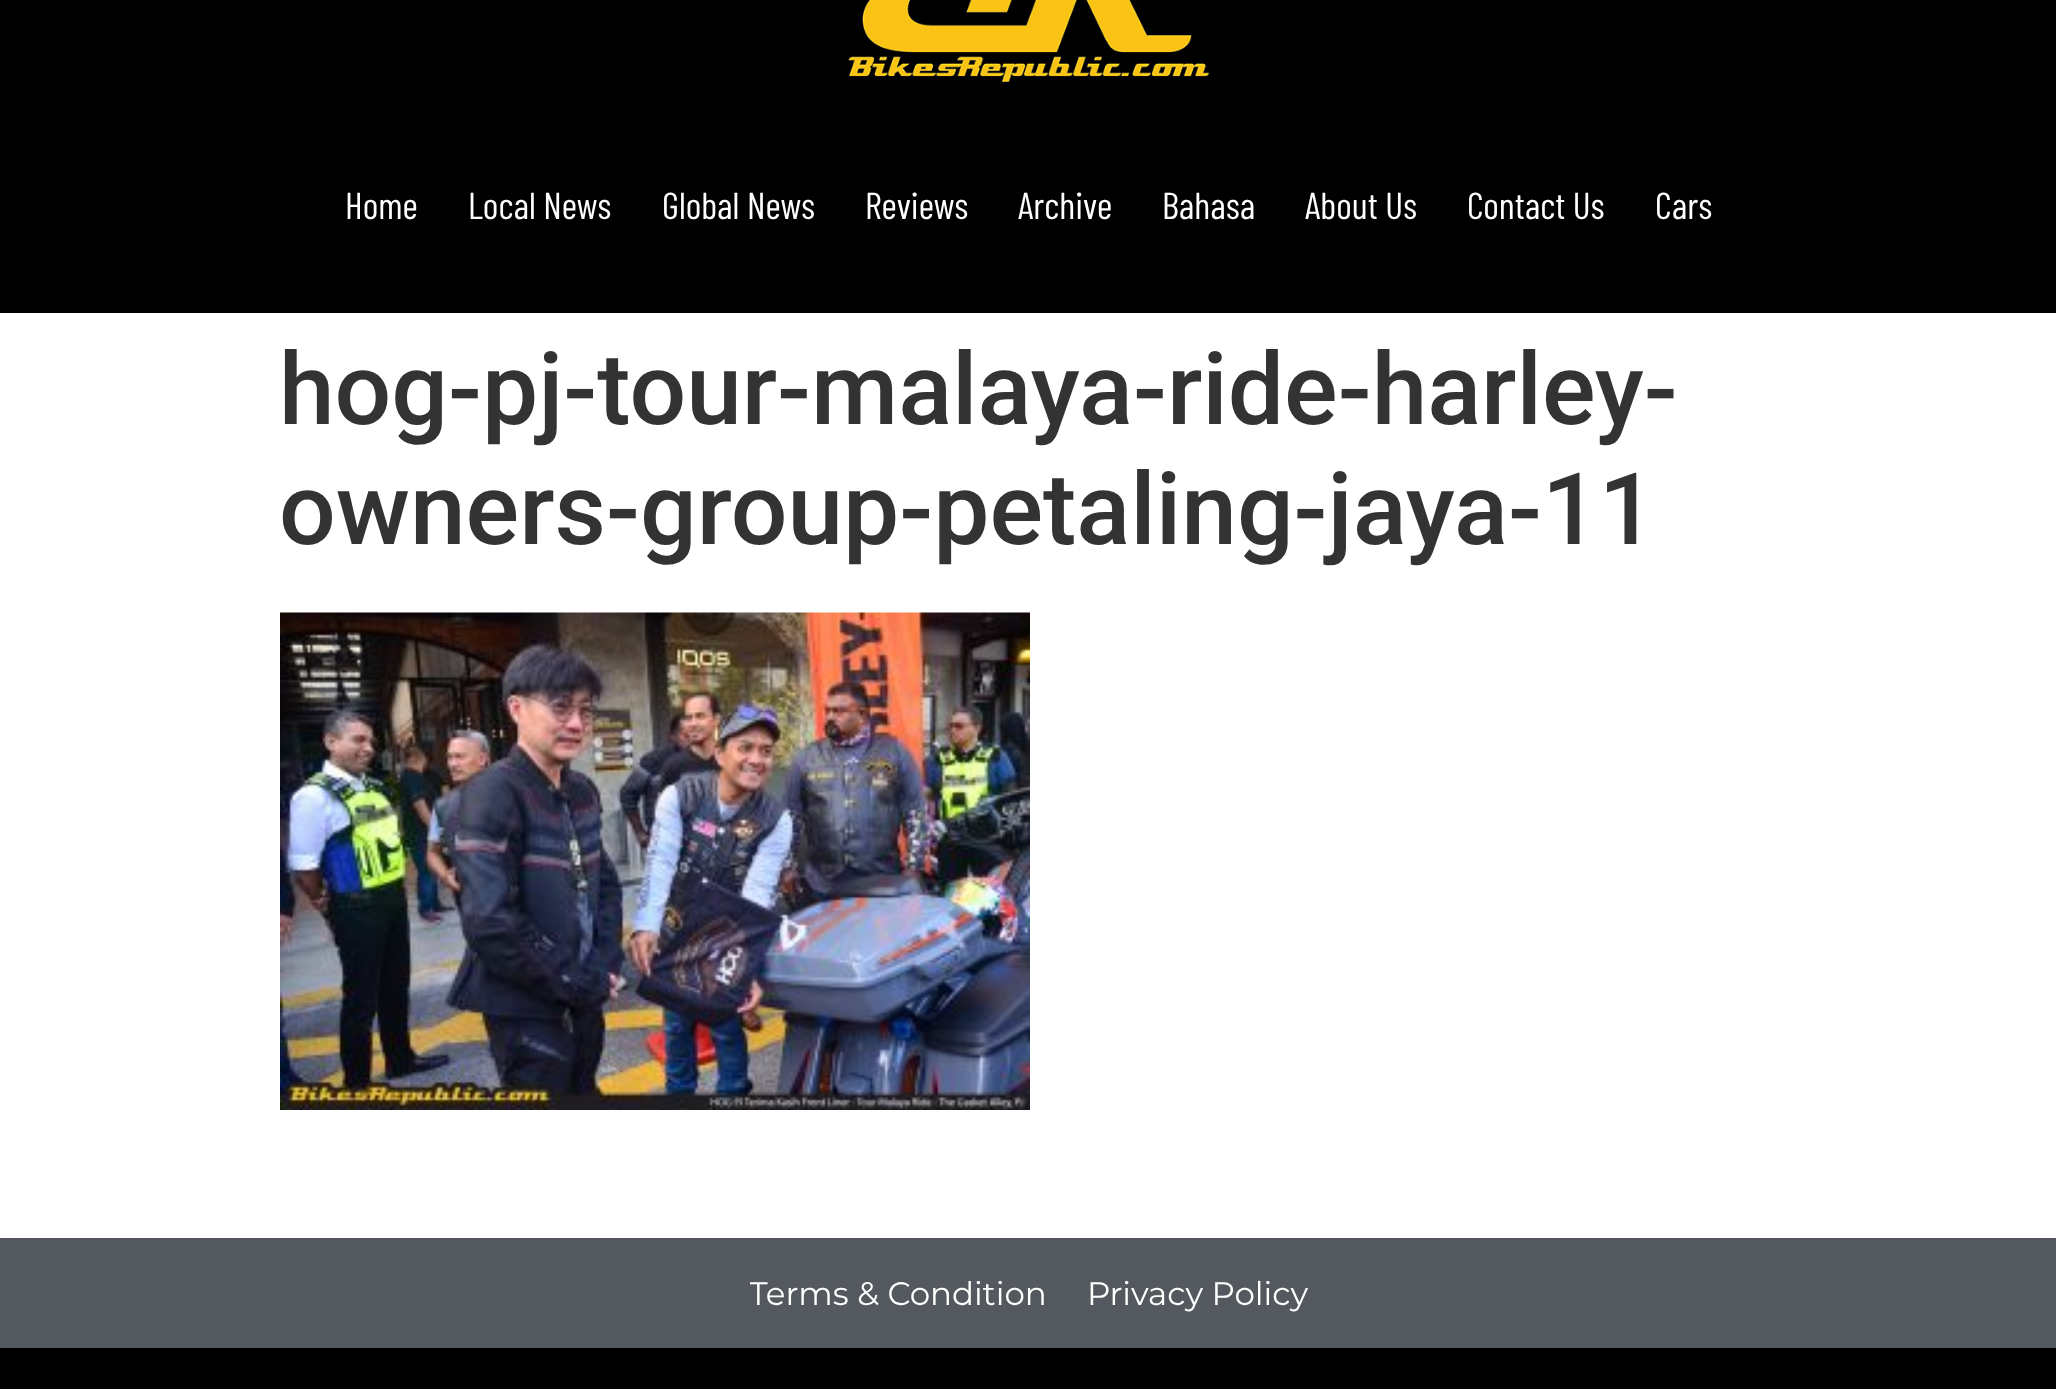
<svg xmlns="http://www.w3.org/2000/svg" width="2056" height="1389">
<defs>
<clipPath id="clip1"><rect x="750" y="1263" width="558" height="60"/></clipPath>
</defs>
<rect width="100%" height="100%" fill="#fff"/>
<rect width="2056" height="313" fill="#000"/>
<image x="848" y="0" width="361" height="83" href="media/1.png"/>
<text x="345" y="219" style="font-family:Barlow Condensed;font-size:37.5px;fill:#fff">Home</text>
<text x="468" y="219" style="font-family:Barlow Condensed;font-size:37.5px;fill:#fff">Local News</text>
<text x="662" y="219" style="font-family:Barlow Condensed;font-size:37.5px;fill:#fff">Global News</text>
<text x="865" y="219" style="font-family:Barlow Condensed;font-size:37.5px;fill:#fff">Reviews</text>
<text x="1018" y="219" style="font-family:Barlow Condensed;font-size:37.5px;fill:#fff">Archive</text>
<text x="1162" y="219" style="font-family:Barlow Condensed;font-size:37.5px;fill:#fff">Bahasa</text>
<text x="1305" y="219" style="font-family:Barlow Condensed;font-size:37.5px;fill:#fff">About Us</text>
<text x="1467" y="219" style="font-family:Barlow Condensed;font-size:37.5px;fill:#fff">Contact Us</text>
<text x="1655" y="219" style="font-family:Barlow Condensed;font-size:37.5px;fill:#fff">Cars</text>
<text x="279" y="424" style="font-family:Roboto;font-size:100px;font-weight:500;fill:#333">hog-pj-tour-malaya-ride-harley-</text>
<text x="279" y="544" style="font-family:Roboto;font-size:100px;font-weight:500;fill:#333">owners-group-petaling-jaya-11</text>
<image x="280" y="612" width="750" height="498" href="media/2.png"/>
<rect y="1238" width="2056" height="110" fill="#54595f"/>
<g clip-path="url(#clip1)">
<text x="749" y="1305" style="font-family:Montserrat;font-size:32.5px;fill:#fff">Terms &amp; Condition</text>
</g>
<text x="1087" y="1305" style="font-family:Montserrat;font-size:32.5px;fill:#fff">Privacy Policy</text>
<rect y="1348" width="2056" height="41" fill="#000"/>
</svg>
